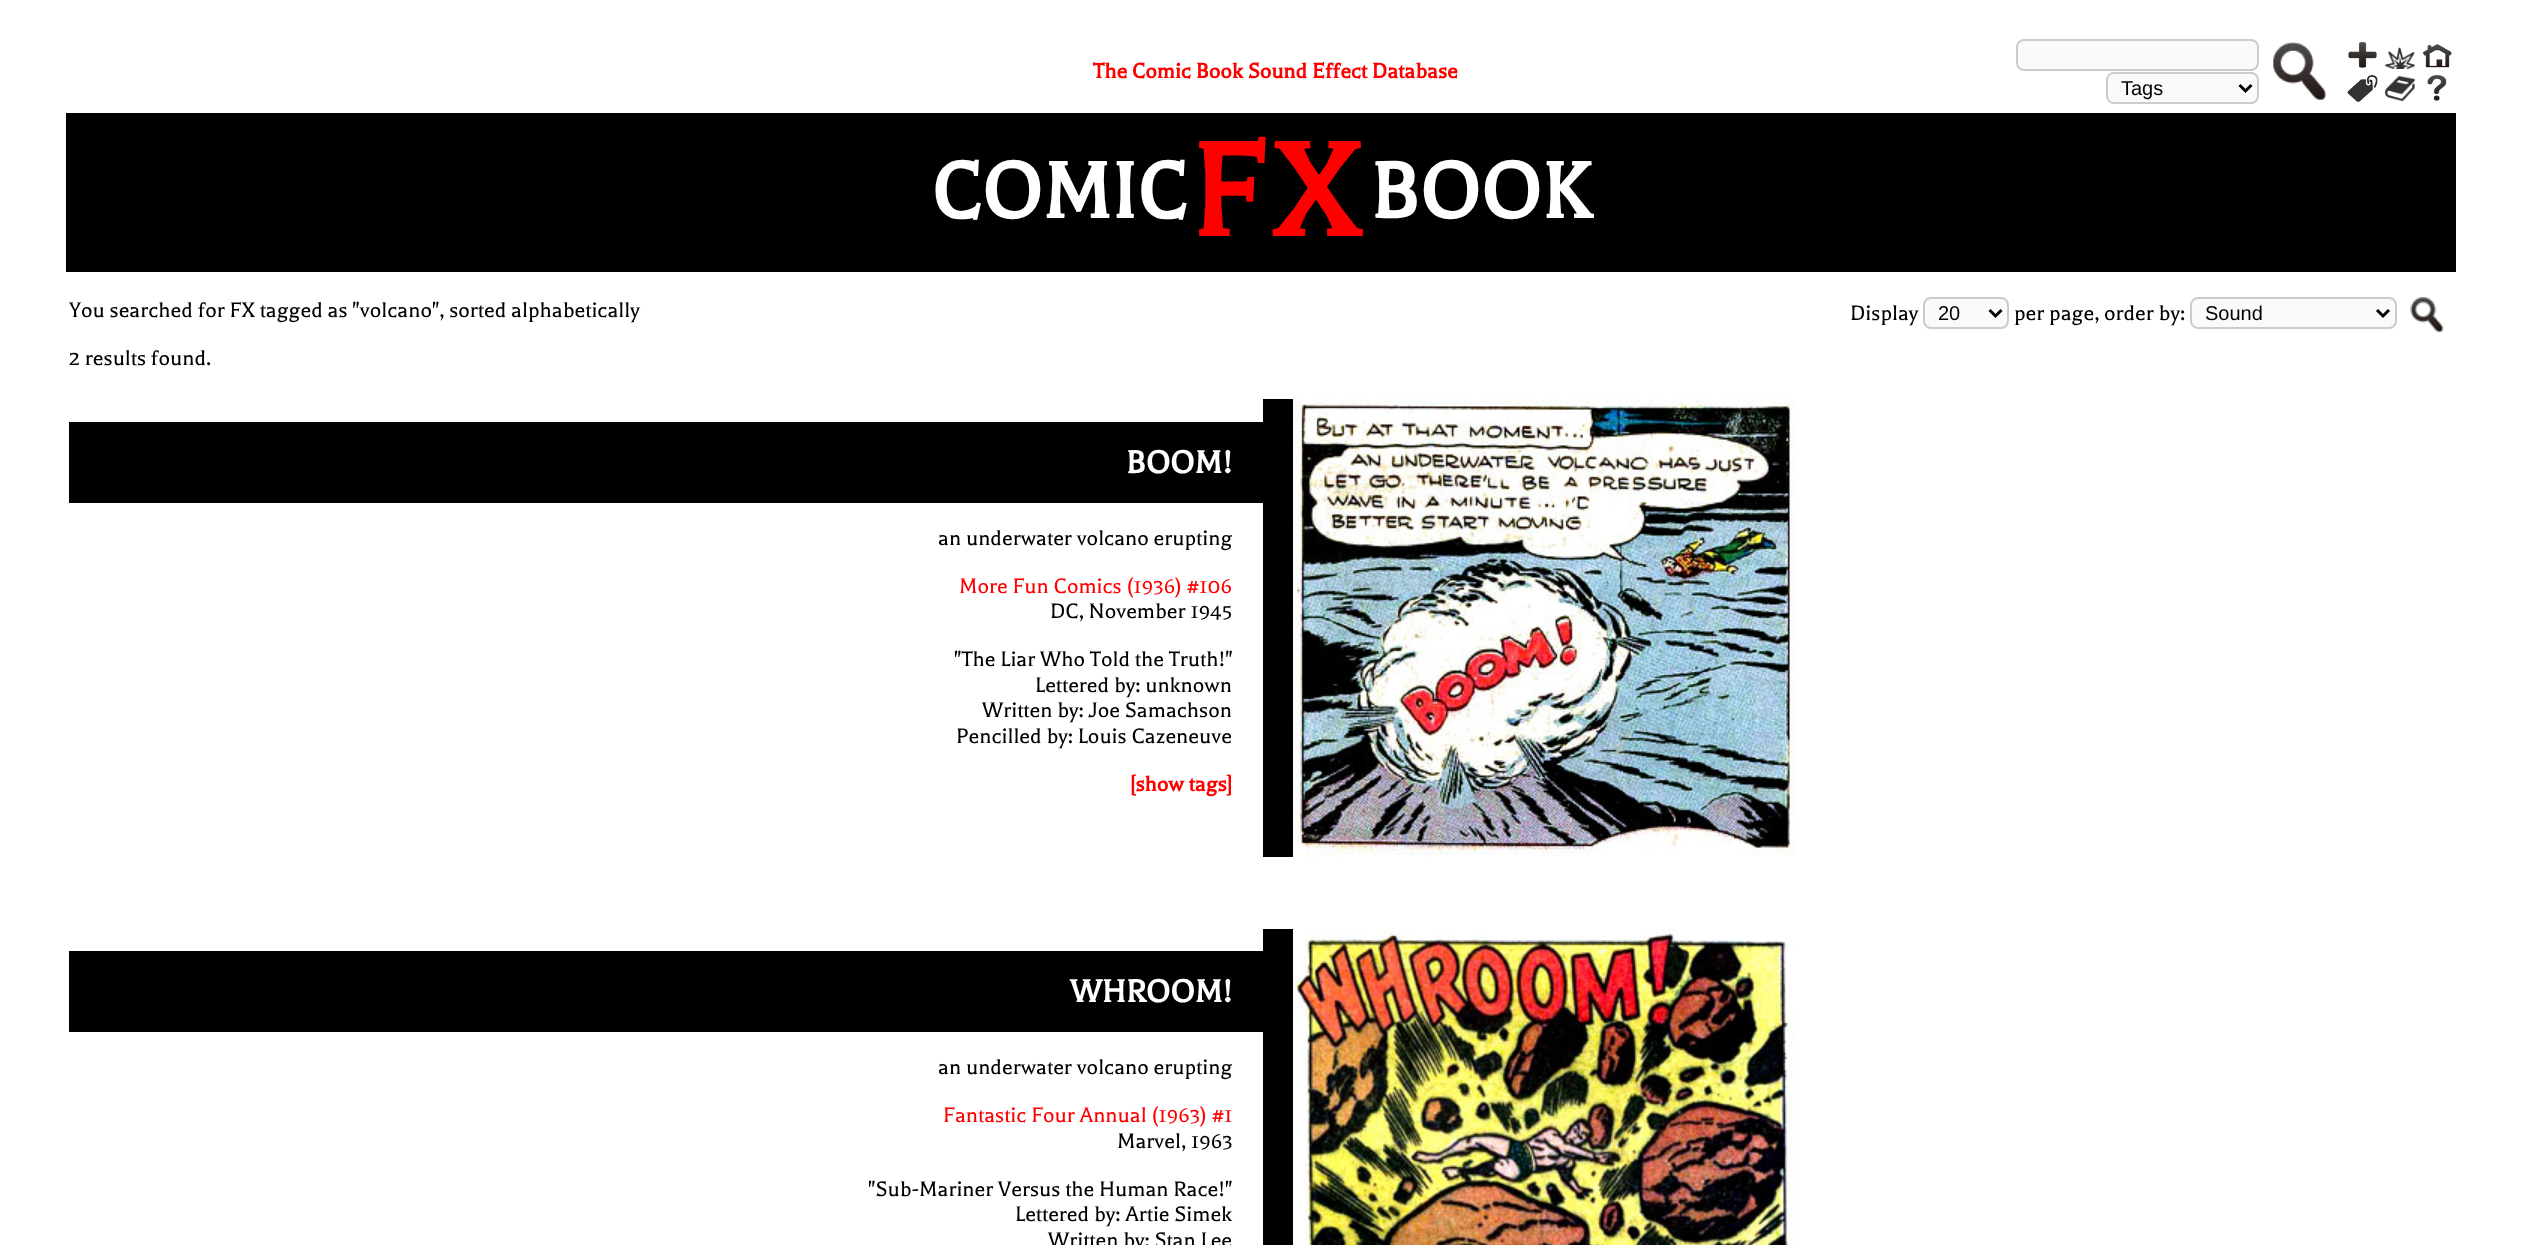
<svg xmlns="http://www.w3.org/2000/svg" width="2521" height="1245">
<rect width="100%" height="100%" fill="#fff"/>
<text x="1093" y="78" style="font-family:Balthazar;font-size:24px;font-weight:bold;fill:#f00">The Comic Book Sound Effect Database</text>
<image x="2273" y="42" width="53" height="58" href="media/1.png"/>
<image x="2348" y="42" width="29" height="26" href="media/2.png"/>
<image x="2385" y="47" width="30" height="22" href="media/3.png"/>
<image x="2423" y="44" width="29" height="24" href="media/4.png"/>
<image x="2347" y="75" width="31" height="27" href="media/5.png"/>
<image x="2385" y="75" width="30" height="27" href="media/6.png"/>
<image x="2427" y="75" width="20" height="26" href="media/7.png"/>
<rect x="2017" y="40" width="241" height="30" rx="7" fill="#fafafa" stroke="#ccc" stroke-width="2"/>
<rect x="2107" y="73" width="151" height="30" rx="7" fill="#fafafa" stroke="#ccc" stroke-width="2"/>
<path d="M2239.5 85l6 6l6-6" fill="none" stroke="#000" stroke-width="3"/>
<text x="2121" y="95" style="font-family:Liberation Sans;font-size:20px;fill:#000">Tags</text>
<rect x="66" y="113" width="2390" height="159" fill="#000"/>
<text x="931" y="218" style="font-family:Balthazar;font-size:90px;font-weight:bold;fill:#fff">COMIC</text>
<text x="1190" y="236" style="font-family:Balthazar;font-size:150px;font-weight:bold;letter-spacing:9px;fill:#f00">FX</text>
<text x="1370" y="218" style="font-family:Balthazar;font-size:90px;font-weight:bold;fill:#fff">BOOK</text>
<text x="69" y="317" style="font-family:Balthazar;font-size:24px;fill:#000">You searched for FX tagged as "volcano", sorted alphabetically</text>
<text x="69" y="365" style="font-family:Balthazar;font-size:24px;fill:#000">2 results found.</text>
<text x="1850" y="320" style="font-family:Balthazar;font-size:24px;fill:#000">Display</text>
<rect x="1924" y="298" width="84" height="30" rx="7" fill="#fafafa" stroke="#ccc" stroke-width="2"/>
<path d="M1989.5 310l6 6l6-6" fill="none" stroke="#000" stroke-width="3"/>
<text x="1938" y="320" style="font-family:Liberation Sans;font-size:20px;fill:#000">20</text>
<text x="2014" y="320" style="font-family:Balthazar;font-size:24px;fill:#000">per page, order by:</text>
<rect x="2191" y="298" width="205" height="30" rx="7" fill="#fafafa" stroke="#ccc" stroke-width="2"/>
<path d="M2377 310l6 6l6-6" fill="none" stroke="#000" stroke-width="3"/>
<text x="2205" y="320" style="font-family:Liberation Sans;font-size:20px;fill:#000">Sound</text>
<image x="2410" y="297" width="34" height="36" href="media/8.png"/>
<rect x="69" y="422" width="1194" height="81" fill="#000"/>
<text x="1126" y="473" style="font-family:Balthazar;font-size:36px;font-weight:bold;fill:#fff">BOOM!</text>
<text x="938" y="545" style="font-family:Balthazar;font-size:24px;fill:#000">an underwater volcano erupting</text>
<text x="959" y="593" style="font-family:Balthazar;font-size:24px;fill:#f00">More Fun Comics (1936) #106</text>
<text x="1050" y="618" style="font-family:Balthazar;font-size:24px;fill:#000">DC, November 1945</text>
<text x="954" y="666" style="font-family:Balthazar;font-size:24px;fill:#000">"The Liar Who Told the Truth!"</text>
<text x="1035" y="692" style="font-family:Balthazar;font-size:24px;fill:#000">Lettered by: unknown</text>
<text x="982" y="717" style="font-family:Balthazar;font-size:24px;fill:#000">Written by: Joe Samachson</text>
<text x="956" y="743" style="font-family:Balthazar;font-size:24px;fill:#000">Pencilled by: Louis Cazeneuve</text>
<text x="1130" y="791" style="font-family:Balthazar;font-size:24px;font-weight:bold;fill:#f00">[show tags]</text>
<rect x="1263" y="399" width="30" height="458" fill="#000"/>
<image x="1293" y="399" width="504" height="458" href="media/9.png"/>
<rect x="69" y="951" width="1194" height="81" fill="#000"/>
<text x="1070" y="1002" style="font-family:Balthazar;font-size:36px;font-weight:bold;fill:#fff">WHROOM!</text>
<text x="938" y="1074" style="font-family:Balthazar;font-size:24px;fill:#000">an underwater volcano erupting</text>
<text x="943" y="1122" style="font-family:Balthazar;font-size:24px;fill:#f00">Fantastic Four Annual (1963) #1</text>
<text x="1117" y="1148" style="font-family:Balthazar;font-size:24px;fill:#000">Marvel, 1963</text>
<text x="868" y="1196" style="font-family:Balthazar;font-size:24px;fill:#000">"Sub-Mariner Versus the Human Race!"</text>
<text x="1015" y="1221" style="font-family:Balthazar;font-size:24px;fill:#000">Lettered by: Artie Simek</text>
<text x="1048" y="1247" style="font-family:Balthazar;font-size:24px;fill:#000">Written by: Stan Lee</text>
<rect x="1263" y="929" width="30" height="316" fill="#000"/>
<image x="1293" y="928" width="501" height="317" href="media/10.png"/>
</svg>
